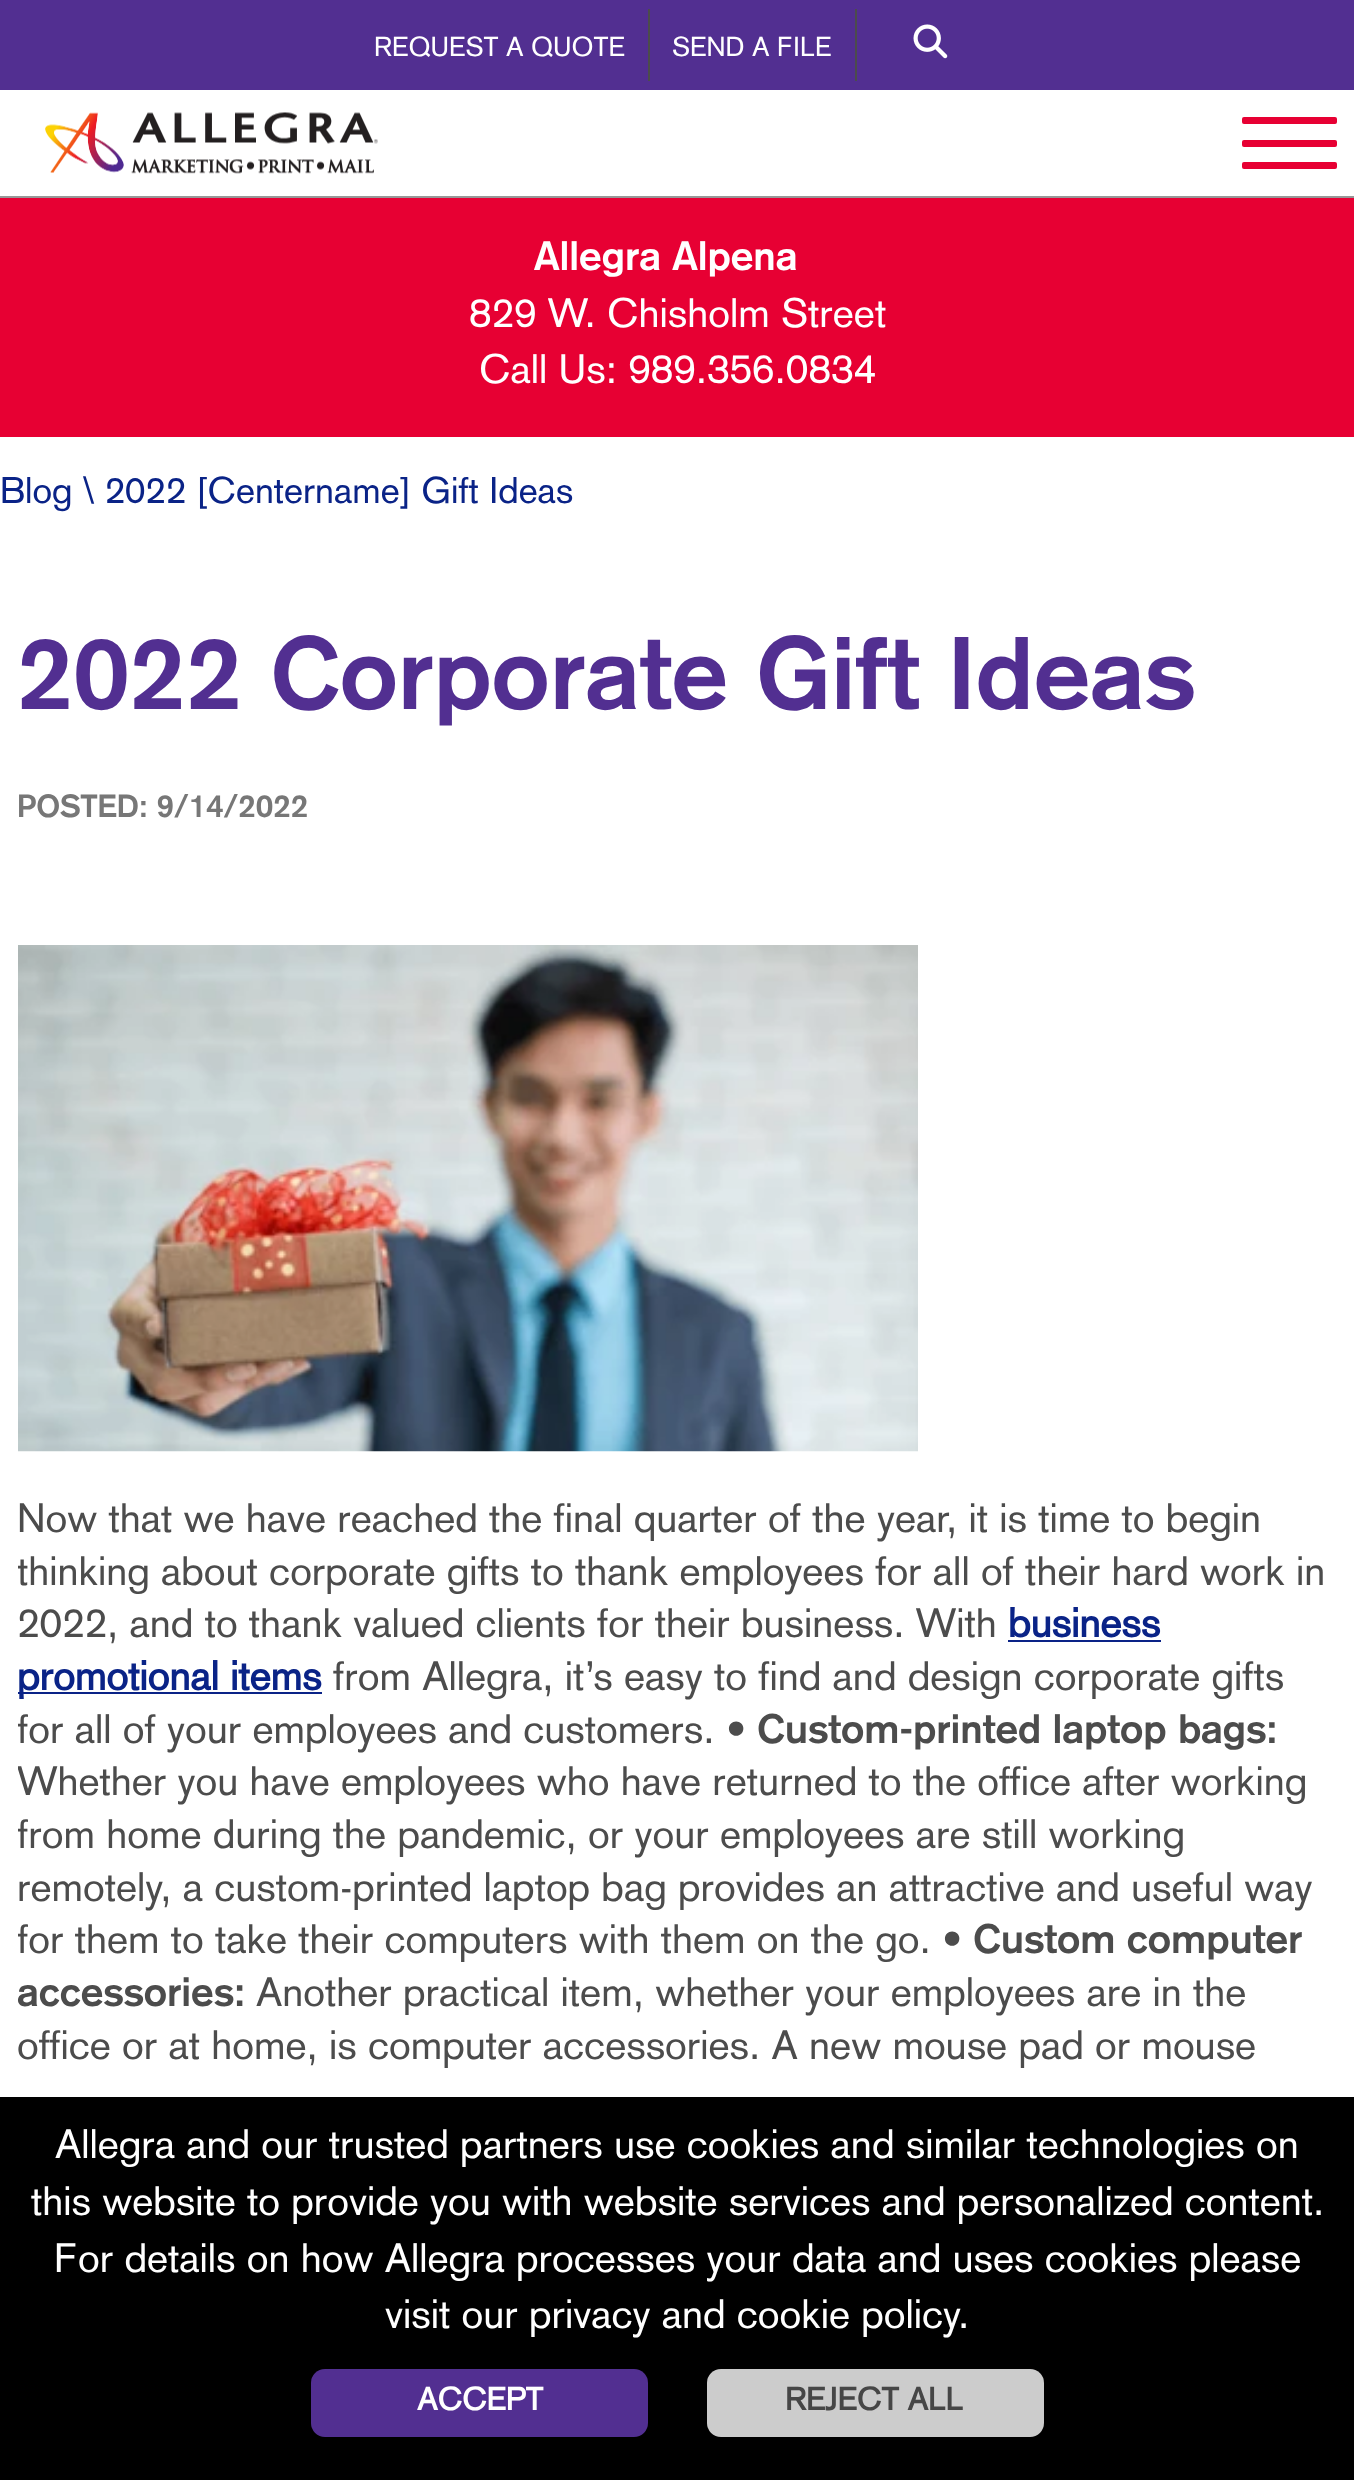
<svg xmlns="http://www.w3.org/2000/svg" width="1354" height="2480">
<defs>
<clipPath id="clip1"><rect x="18" y="900" width="1321" height="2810"/></clipPath>
</defs>
<rect width="100%" height="100%" fill="#fff"/>
<rect y="196" width="1354" height="2" fill="#979797"/>
<rect width="1354" height="90" fill="#522f91"/>
<rect x="648" y="9" width="2" height="72" fill="#4c4c4c"/>
<text x="374" y="56" style="font-family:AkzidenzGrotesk;font-size:27px;fill:#fff">REQUEST A QUOTE</text>
<rect x="855" y="9" width="2" height="72" fill="#4c4c4c"/>
<text x="672" y="56" style="font-family:AkzidenzGrotesk;font-size:27px;fill:#fff">SEND A FILE</text>
<image x="913" y="24" width="35" height="35" href="media/1.png"/>
<image x="45" y="112" width="333" height="62" href="media/2.png"/>
<rect x="1242" y="117" width="95" height="7" rx="2" fill="#e70033"/>
<rect x="1242" y="140" width="95" height="7" rx="2" fill="#e70033"/>
<rect x="1242" y="162" width="95" height="7" rx="2" fill="#e70033"/>
<rect y="198" width="1354" height="239" fill="#e70033"/>
<text x="534" y="270" style="font-family:AkzidenzGrotesk;font-size:40.5px;font-weight:bold;fill:#fff">Allegra Alpena</text>
<text x="469" y="327" style="font-family:AkzidenzGrotesk;font-size:40.5px;fill:#fff">829 W. Chisholm Street</text>
<text x="479" y="383" style="font-family:AkzidenzGrotesk;font-size:40.5px;fill:#fff">Call Us: 989.356.0834</text>
<text x="0" y="503" style="font-family:AkzidenzGrotesk;font-size:36.5px;fill:#0a2387">Blog \ 2022 [Centername] Gift Ideas</text>
<text x="17" y="709" style="font-family:AkzidenzGrotesk;font-size:101.25px;font-weight:bold;fill:#522f91">2022 Corporate Gift Ideas</text>
<text x="17" y="817" style="font-family:AkzidenzGrotesk;font-size:31.5px;font-weight:bold;fill:#777">POSTED: 9/14/2022</text>
<image x="18" y="945" width="900" height="507" href="media/3.png"/>
<text x="17" y="1532" style="font-family:AkzidenzGrotesk;font-size:40.5px;fill:#4c4c4c">Now that we have reached the final quarter of the year, it is time to begin</text>
<g clip-path="url(#clip1)">
<text x="17" y="1585" style="font-family:AkzidenzGrotesk;font-size:40.5px;fill:#4c4c4c">thinking about corporate gifts to thank employees for all of their hard work in</text>
</g>
<text x="17" y="1637" style="font-family:AkzidenzGrotesk;font-size:40.5px;fill:#4c4c4c">2022, and to thank valued clients for their business. With</text>
<text x="1008" y="1637" style="font-family:'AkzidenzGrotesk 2';font-size:40.5px;font-weight:bold;fill:#0a2387">business</text>
<rect x="1008" y="1640" width="153" height="2" fill="#0a2387"/>
<rect x="18" y="1692" width="304" height="2" fill="#0a2387"/>
<text x="17" y="1690" style="font-family:'AkzidenzGrotesk 2';font-size:40.5px;font-weight:bold;fill:#0a2387">promotional items</text>
<text x="333" y="1690" style="font-family:AkzidenzGrotesk;font-size:40.5px;fill:#4c4c4c">from Allegra, it’s easy to find and design corporate gifts</text>
<g clip-path="url(#clip1)">
<text x="17" y="1743" style="font-family:AkzidenzGrotesk;font-size:40.5px;fill:#4c4c4c">for all of your employees and customers.</text>
</g>
<text x="726" y="1743" style="font-family:AkzidenzGrotesk;font-size:40.5px;fill:#4c4c4c">•</text>
<text x="757" y="1743" style="font-family:AkzidenzGrotesk;font-size:40.5px;font-weight:bold;fill:#4c4c4c">Custom-printed laptop bags:</text>
<g clip-path="url(#clip1)">
<text x="17" y="1795" style="font-family:AkzidenzGrotesk;font-size:40.5px;fill:#4c4c4c">Whether you have employees who have returned to the office after working</text>
<text x="17" y="1848" style="font-family:AkzidenzGrotesk;font-size:40.5px;fill:#4c4c4c">from home during the pandemic, or your employees are still working</text>
</g>
<text x="17" y="1901" style="font-family:AkzidenzGrotesk;font-size:40.5px;fill:#4c4c4c">remotely, a custom-printed laptop bag provides an attractive and useful way</text>
<g clip-path="url(#clip1)">
<text x="17" y="1953" style="font-family:AkzidenzGrotesk;font-size:40.5px;fill:#4c4c4c">for them to take their computers with them on the go.</text>
</g>
<text x="942" y="1953" style="font-family:AkzidenzGrotesk;font-size:40.5px;fill:#4c4c4c">•</text>
<text x="973" y="1953" style="font-family:AkzidenzGrotesk;font-size:40.5px;font-weight:bold;fill:#4c4c4c">Custom computer</text>
<text x="17" y="2006" style="font-family:AkzidenzGrotesk;font-size:40.5px;font-weight:bold;fill:#4c4c4c">accessories:</text>
<text x="256" y="2006" style="font-family:AkzidenzGrotesk;font-size:40.5px;fill:#4c4c4c">Another practical item, whether your employees are in the</text>
<text x="17" y="2059" style="font-family:AkzidenzGrotesk;font-size:40.5px;fill:#4c4c4c">office or at home, is computer accessories. A new mouse pad or mouse</text>
<rect y="2097" width="1354" height="383" fill="#000"/>
<text x="55" y="2158" style="font-family:AkzidenzGrotesk;font-size:40.5px;fill:#fff">Allegra and our trusted partners use cookies and similar technologies on</text>
<text x="31" y="2215" style="font-family:AkzidenzGrotesk;font-size:40.5px;fill:#fff">this website to provide you with website services and personalized content.</text>
<text x="54" y="2272" style="font-family:AkzidenzGrotesk;font-size:40.5px;fill:#fff">For details on how Allegra processes your data and uses cookies please</text>
<text x="385" y="2328" style="font-family:AkzidenzGrotesk;font-size:40.5px;fill:#fff">visit our privacy and cookie policy.</text>
<rect x="311" y="2369" width="337" height="68" rx="14" fill="#522f91"/>
<text x="417" y="2410" style="font-family:'AkzidenzGrotesk 2';font-size:31.5px;font-weight:bold;fill:#fff">ACCEPT</text>
<rect x="707" y="2369" width="337" height="68" rx="14" fill="#ccc"/>
<text x="785" y="2410" style="font-family:'AkzidenzGrotesk 2';font-size:31.5px;font-weight:bold;fill:#464646">REJECT ALL</text>
</svg>
